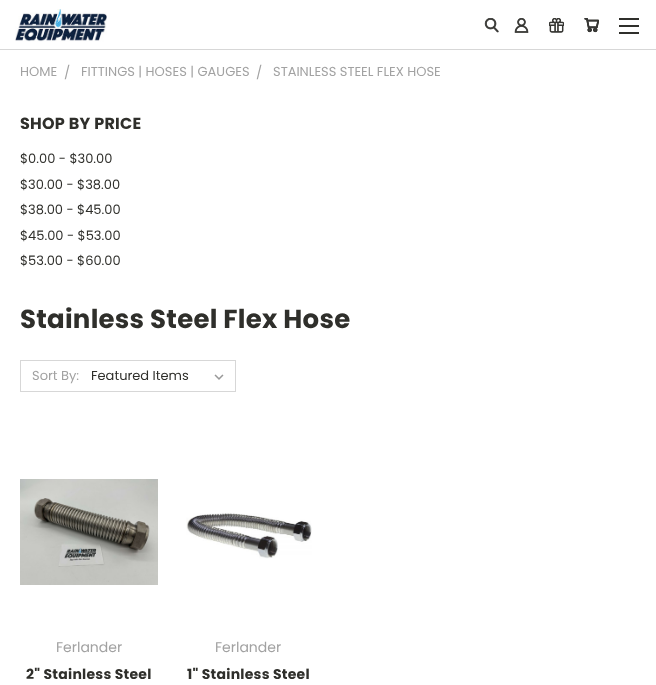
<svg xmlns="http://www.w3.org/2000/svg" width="656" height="685">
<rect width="100%" height="100%" fill="#fff"/>
<rect y="49" width="656" height="1" fill="#d7d7d7"/>
<image x="15" y="9" width="92" height="33" href="media/1.png"/>
<image x="484" y="18" width="15" height="15" href="media/2.png"/>
<image x="514" y="18" width="15" height="15" href="media/3.png"/>
<image x="549" y="18" width="15" height="15" href="media/4.png"/>
<image x="584" y="18" width="15" height="15" href="media/5.png"/>
<rect x="619" y="25" width="20" height="2" fill="#2f2f2b"/>
<rect x="619" y="18" width="20" height="2" fill="#2f2f2b"/>
<rect x="619" y="32" width="20" height="2" fill="#2f2f2b"/>
<text x="20" y="76" style="font-family:Poppins;font-size:13px;fill:#a2a2a2">HOME</text>
<text x="64" y="77" style="font-family:Poppins;font-size:13px;fill:#a2a2a2">/</text>
<text x="81" y="76" style="font-family:Poppins;font-size:13px;fill:#a2a2a2">FITTINGS | HOSES | GAUGES</text>
<text x="256" y="77" style="font-family:Poppins;font-size:13px;fill:#a2a2a2">/</text>
<text x="273" y="76" style="font-family:Poppins;font-size:13px;fill:#a2a2a2">STAINLESS STEEL FLEX HOSE</text>
<text x="20" y="129" style="font-family:Poppins;font-size:16px;font-weight:bold;letter-spacing:0.25px;fill:#2f2f2b">SHOP BY PRICE</text>
<text x="20" y="163" style="font-family:Poppins;font-size:13px;fill:#2f2f2b">$0.00 - $30.00</text>
<text x="20" y="189" style="font-family:Poppins;font-size:13px;fill:#2f2f2b">$30.00 - $38.00</text>
<text x="20" y="214" style="font-family:Poppins;font-size:13px;fill:#2f2f2b">$38.00 - $45.00</text>
<text x="20" y="240" style="font-family:Poppins;font-size:13px;fill:#2f2f2b">$45.00 - $53.00</text>
<text x="20" y="265" style="font-family:Poppins;font-size:13px;fill:#2f2f2b">$53.00 - $60.00</text>
<text x="20" y="328" style="font-family:Poppins;font-size:26px;font-weight:bold;letter-spacing:0.25px;fill:#2f2f2b">Stainless Steel Flex Hose</text>
<rect x="20.5" y="360.5" width="215" height="31" fill="none" stroke="#d7d7d7"/>
<text x="32" y="380" style="font-family:Poppins;font-size:13px;fill:#a2a2a2">Sort By:</text>
<image x="214" y="374" width="10" height="6" href="media/6.png"/>
<text x="91" y="380" style="font-family:Poppins;font-size:13px;fill:#2f2f2b">Featured Items</text>
<image x="20" y="479" width="138" height="106" href="media/7.png"/>
<text x="56" y="652" style="font-family:Poppins;font-size:14px;fill:#a2a2a2">Ferlander</text>
<text x="26" y="679" style="font-family:Poppins;font-size:14px;font-weight:bold;letter-spacing:0.25px;fill:#2f2f2b">2" Stainless Steel</text>
<image x="186" y="512" width="126" height="47" href="media/8.png"/>
<text x="215" y="652" style="font-family:Poppins;font-size:14px;fill:#a2a2a2">Ferlander</text>
<text x="187" y="679" style="font-family:Poppins;font-size:14px;font-weight:bold;letter-spacing:0.25px;fill:#2f2f2b">1" Stainless Steel</text>
</svg>
